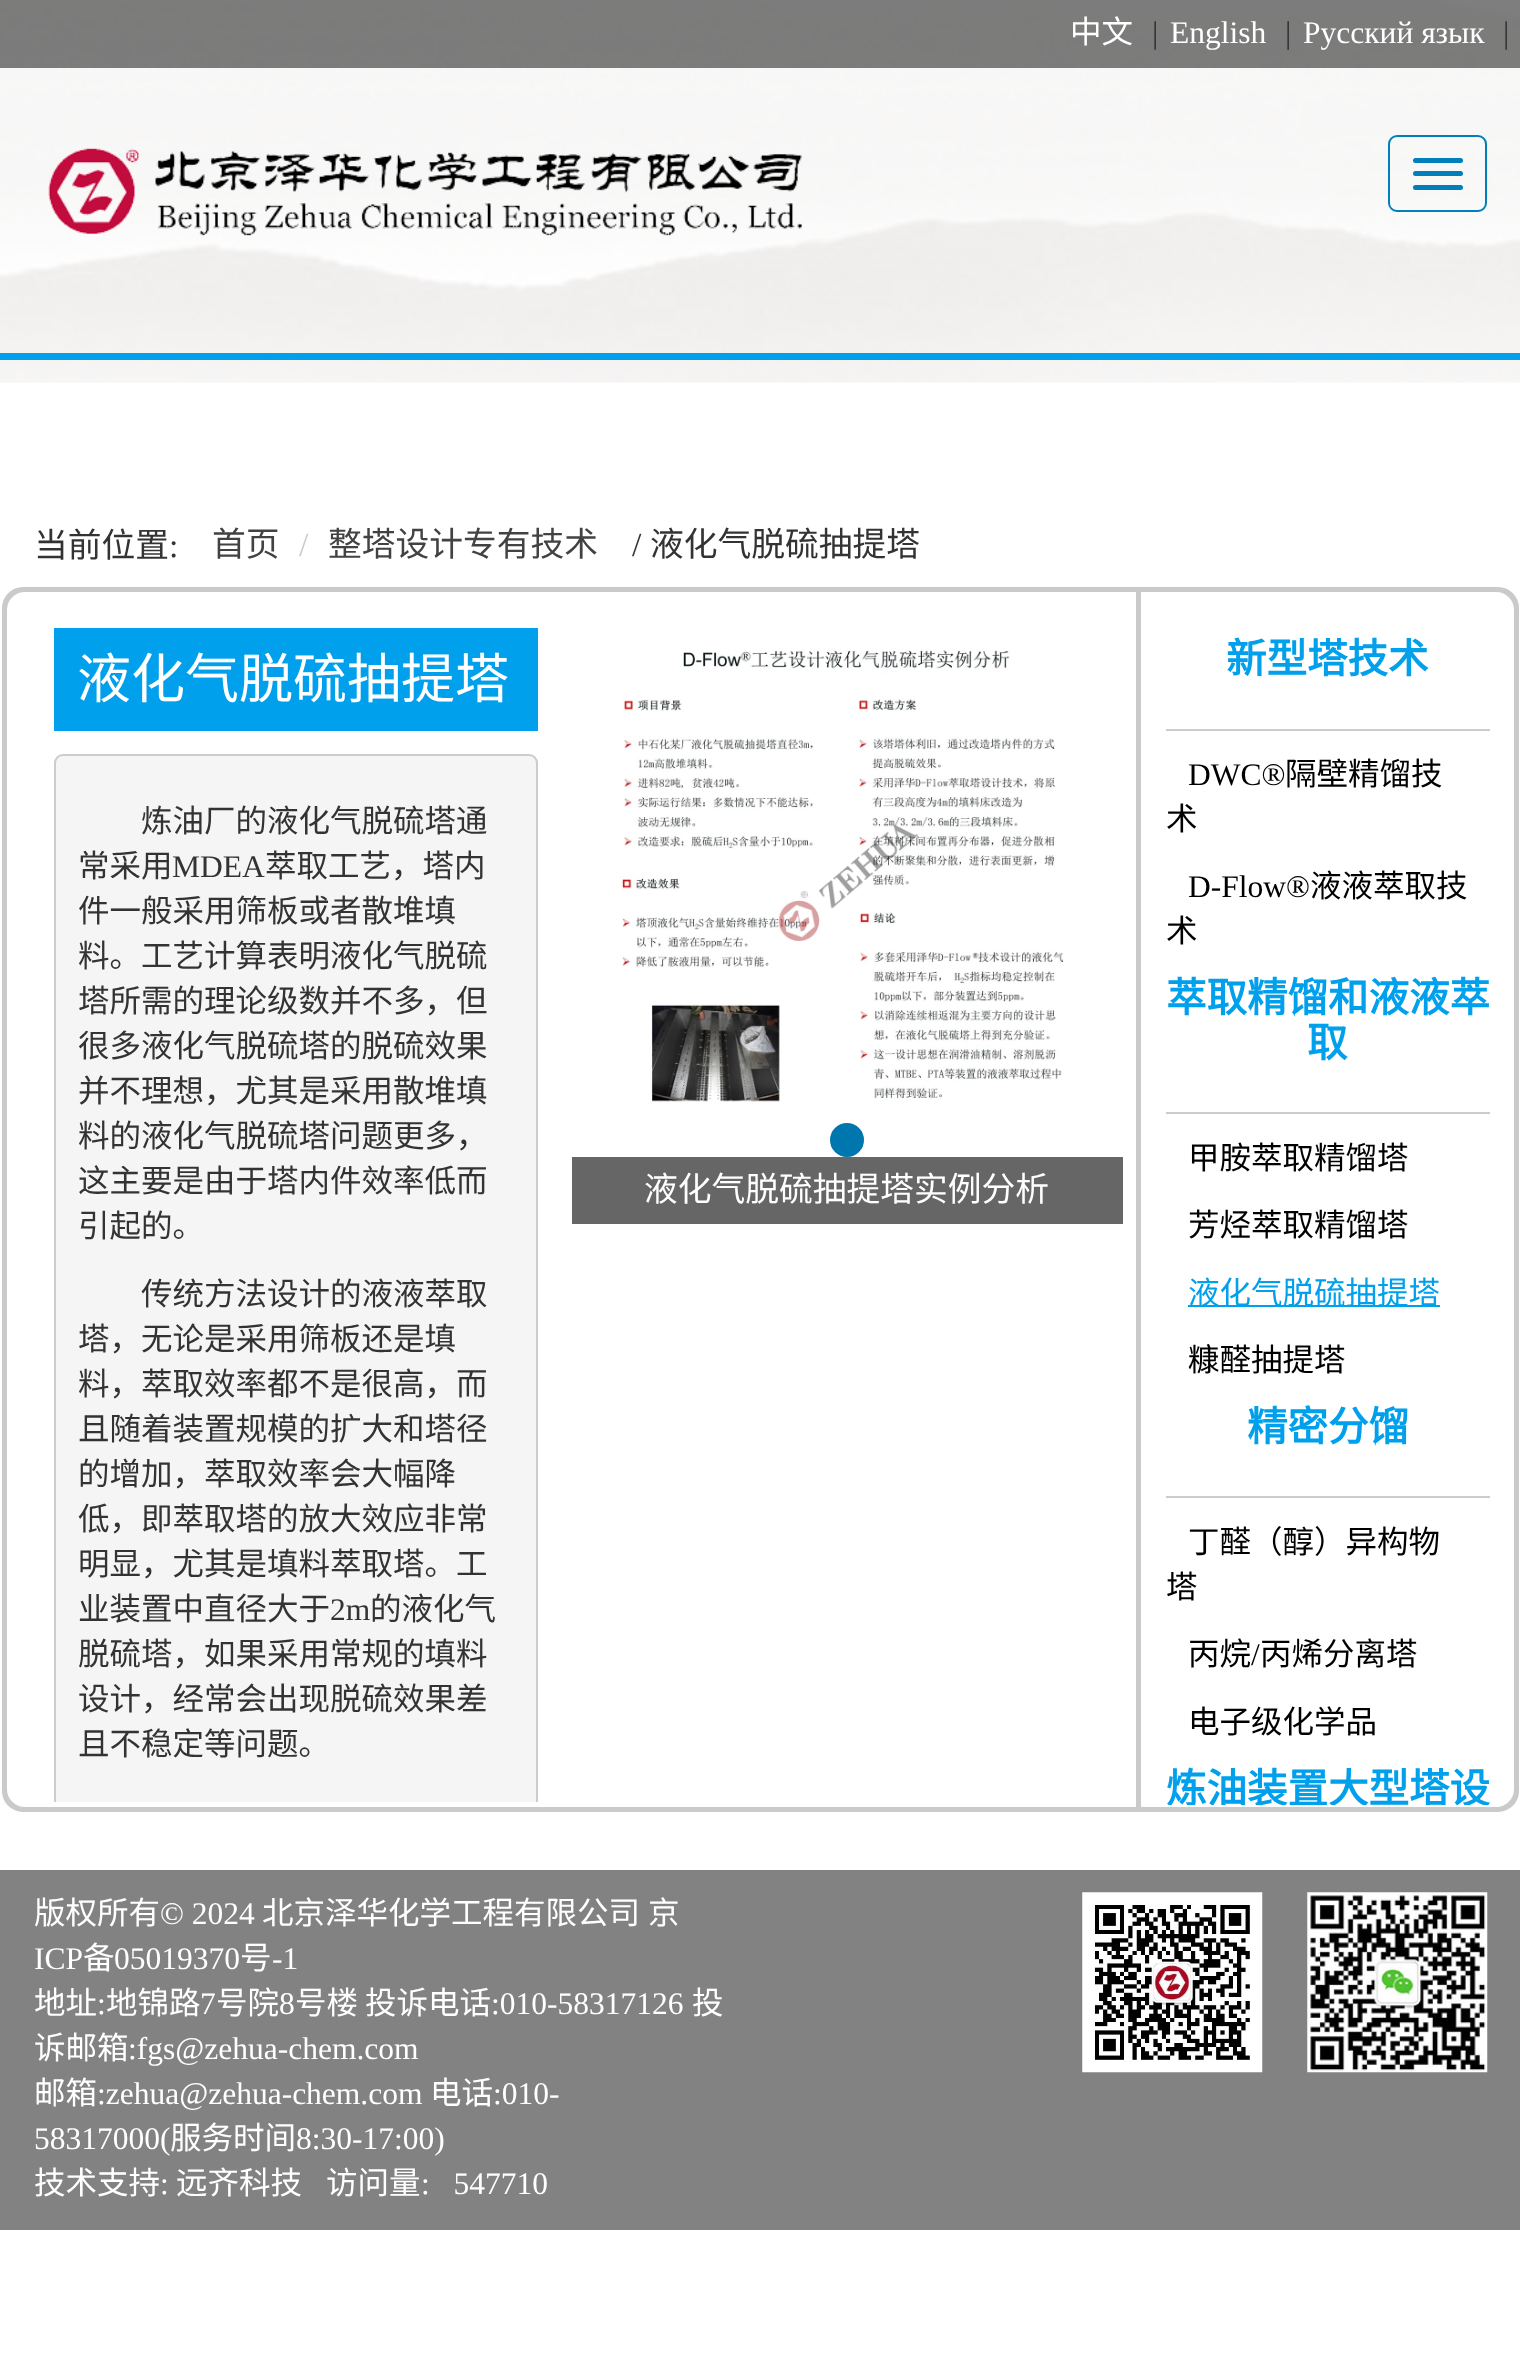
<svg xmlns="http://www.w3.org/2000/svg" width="1520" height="2361">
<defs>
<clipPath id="clip1"><rect x="20" y="605" width="552" height="1197"/></clipPath>
<clipPath id="clip2"><path d="M1143 594h353c9 0 16 7 16 16v1179c0 9-7 16-16 16h-353z"/></clipPath>
</defs>
<rect width="100%" height="100%" fill="#fff"/>
<image x="0" y="0" width="1520" height="383" href="media/1.png"/>
<rect width="1520" height="68" fill="#00000080"/>
<text x="1070" y="43" style="font-family:Noto Sans CJK SC;font-size:31.5px;fill:#fff">中文</text>
<text x="1152" y="43" style="font-family:Liberation Serif;font-size:31.5px;fill:#333">|</text>
<text x="1170" y="43" style="font-family:Liberation Serif;font-size:31.5px;fill:#fff">English</text>
<text x="1285" y="43" style="font-family:Liberation Serif;font-size:31.5px;fill:#333">|</text>
<text x="1303" y="43" style="font-family:Liberation Serif;font-size:31.5px;fill:#fff">Русский язык</text>
<text x="1503" y="43" style="font-family:Liberation Serif;font-size:31.5px;fill:#333">|</text>
<rect y="353" width="1520" height="7" fill="#00a0ec"/>
<rect x="1389" y="136" width="97" height="75" rx="8" fill="none" stroke="#007fbb" stroke-width="2"/>
<rect x="1413" y="158" width="50" height="5" rx="2.5" fill="#007fbb"/>
<rect x="1413" y="171" width="50" height="5" rx="2.5" fill="#007fbb"/>
<rect x="1413" y="185" width="50" height="5" rx="2.5" fill="#007fbb"/>
<image x="48" y="148" width="755" height="88" href="media/2.png"/>
<text x="34" y="557" style="font-family:Noto Sans CJK SC;font-size:33.75px;fill:#333">当前位置</text>
<text x="169" y="557" style="font-family:Liberation Serif;font-size:33.75px;fill:#333">:</text>
<text x="212" y="556" style="font-family:Noto Sans CJK SC;font-size:33.75px;fill:#424242">首页</text>
<text x="299" y="556" style="font-family:Liberation Serif;font-size:33.75px;fill:#ccc">/</text>
<text x="328" y="556" style="font-family:Noto Sans CJK SC;font-size:33.75px;fill:#424242">整塔设计专有技术</text>
<text x="632" y="556" style="font-family:Liberation Serif;font-size:33.75px;fill:#333">/</text>
<text x="650" y="556" style="font-family:Noto Sans CJK SC;font-size:33.75px;fill:#333">液化气脱硫抽提塔</text>
<rect x="1" y="586" width="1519" height="1227" rx="22" fill="#cacaca" stroke="#fff" stroke-width="2"/>
<path d="M25 593h1110v1213h-1110c-9.5 0-17-7.5-17-17v-1179c0-9.5 7.5-17 17-17z" fill="#fff" stroke="#fff" stroke-width="2"/>
<rect x="54" y="628" width="484" height="103" fill="#00a0ec"/>
<text x="77" y="698" style="font-family:Noto Sans CJK SC;font-size:54px;fill:#fff">液化气脱硫抽提塔</text>
<path d="M63 754h466c5 0 9 4 9 9v1039h-484v-1039c0-5 4-9 9-9z" fill="#f5f5f5"/>
<rect y="1870" width="1520" height="360" fill="#828282"/>
<g clip-path="url(#clip1)">
<rect x="55" y="755" width="482" height="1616" rx="8" fill="none" stroke="#ccc" stroke-width="2"/>
</g>
<text x="141" y="832" style="font-family:Noto Sans CJK SC;font-size:31.5px;fill:#333">炼油厂的液化气脱硫塔通</text>
<text x="78" y="877" style="font-family:Noto Sans CJK SC;font-size:31.5px;fill:#333">常采用</text>
<text x="172" y="877" style="font-family:Liberation Serif;font-size:31.5px;fill:#333">MDEA</text>
<text x="265" y="877" style="font-family:Noto Sans CJK SC;font-size:31.5px;fill:#333">萃取工艺，塔内</text>
<text x="78" y="922" style="font-family:Noto Sans CJK SC;font-size:31.5px;fill:#333">件一般采用筛板或者散堆填</text>
<text x="78" y="967" style="font-family:Noto Sans CJK SC;font-size:31.5px;fill:#333">料。工艺计算表明液化气脱硫</text>
<text x="78" y="1012" style="font-family:Noto Sans CJK SC;font-size:31.5px;fill:#333">塔所需的理论级数并不多，但</text>
<text x="78" y="1057" style="font-family:Noto Sans CJK SC;font-size:31.5px;fill:#333">很多液化气脱硫塔的脱硫效果</text>
<text x="78" y="1102" style="font-family:Noto Sans CJK SC;font-size:31.5px;fill:#333">并不理想，尤其是采用散堆填</text>
<text x="78" y="1147" style="font-family:Noto Sans CJK SC;font-size:31.5px;fill:#333">料的液化气脱硫塔问题更多，</text>
<text x="78" y="1192" style="font-family:Noto Sans CJK SC;font-size:31.5px;fill:#333">这主要是由于塔内件效率低而</text>
<text x="78" y="1237" style="font-family:Noto Sans CJK SC;font-size:31.5px;fill:#333">引起的。</text>
<text x="141" y="1305" style="font-family:Noto Sans CJK SC;font-size:31.5px;fill:#333">传统方法设计的液液萃取</text>
<text x="78" y="1350" style="font-family:Noto Sans CJK SC;font-size:31.5px;fill:#333">塔，无论是采用筛板还是填</text>
<text x="78" y="1395" style="font-family:Noto Sans CJK SC;font-size:31.5px;fill:#333">料，萃取效率都不是很高，而</text>
<text x="78" y="1440" style="font-family:Noto Sans CJK SC;font-size:31.5px;fill:#333">且随着装置规模的扩大和塔径</text>
<text x="78" y="1485" style="font-family:Noto Sans CJK SC;font-size:31.5px;fill:#333">的增加，萃取效率会大幅降</text>
<text x="78" y="1530" style="font-family:Noto Sans CJK SC;font-size:31.5px;fill:#333">低，即萃取塔的放大效应非常</text>
<text x="78" y="1575" style="font-family:Noto Sans CJK SC;font-size:31.5px;fill:#333">明显，尤其是填料萃取塔。工</text>
<text x="78" y="1620" style="font-family:Noto Sans CJK SC;font-size:31.5px;fill:#333">业装置中直径大于</text>
<text x="330" y="1620" style="font-family:Liberation Serif;font-size:31.5px;fill:#333">2m</text>
<text x="370" y="1620" style="font-family:Noto Sans CJK SC;font-size:31.5px;fill:#333">的液化气</text>
<text x="78" y="1665" style="font-family:Noto Sans CJK SC;font-size:31.5px;fill:#333">脱硫塔，如果采用常规的填料</text>
<text x="78" y="1710" style="font-family:Noto Sans CJK SC;font-size:31.5px;fill:#333">设计，经常会出现脱硫效果差</text>
<text x="78" y="1755" style="font-family:Noto Sans CJK SC;font-size:31.5px;fill:#333">且不稳定等问题。</text>
<circle cx="847" cy="1140" r="16" fill="#0076af" stroke="#0076af" stroke-width="2"/>
<image x="621" y="650" width="443" height="452" href="media/3.png"/>
<rect x="572" y="1157" width="551" height="67" fill="#666"/>
<text x="644" y="1201" style="font-family:Noto Sans CJK SC;font-size:33.75px;fill:#fff">液化气脱硫抽提塔实例分析</text>
<path d="M1142 593h354c9.5 0 17 7.5 17 17v1179c0 9.5-7.5 17-17 17h-354z" fill="#fff" stroke="#fff" stroke-width="2"/>
<rect x="1166" y="729" width="324" height="2" fill="#ccc"/>
<text x="1226" y="673" style="font-family:Noto Sans CJK SC;font-size:40.5px;font-weight:bold;fill:#00a0ec">新型塔技术</text>
<text x="1188" y="785" style="font-family:Liberation Serif;font-size:31.5px;fill:#000">DWC®</text>
<text x="1285" y="785" style="font-family:Noto Sans CJK SC;font-size:31.5px;fill:#000">隔壁精馏技</text>
<text x="1166" y="830" style="font-family:Noto Sans CJK SC;font-size:31.5px;fill:#000">术</text>
<text x="1188" y="897" style="font-family:Liberation Serif;font-size:31.5px;fill:#000">D-Flow®</text>
<text x="1310" y="897" style="font-family:Noto Sans CJK SC;font-size:31.5px;fill:#000">液液萃取技</text>
<text x="1166" y="942" style="font-family:Noto Sans CJK SC;font-size:31.5px;fill:#000">术</text>
<rect x="1166" y="1112" width="324" height="2" fill="#ccc"/>
<text x="1166" y="1012" style="font-family:Noto Sans CJK SC;font-size:40.5px;font-weight:bold;fill:#00a0ec">萃取精馏和液液萃</text>
<text x="1307" y="1057" style="font-family:Noto Sans CJK SC;font-size:40.5px;font-weight:bold;fill:#00a0ec">取</text>
<text x="1188" y="1169" style="font-family:Noto Sans CJK SC;font-size:31.5px;fill:#000">甲胺萃取精馏塔</text>
<text x="1188" y="1236" style="font-family:Noto Sans CJK SC;font-size:31.5px;fill:#000">芳烃萃取精馏塔</text>
<rect x="1188" y="1305" width="252" height="2" fill="#00a0ec"/>
<text x="1188" y="1304" style="font-family:Noto Sans CJK SC;font-size:31.5px;fill:#00a0ec">液化气脱硫抽提塔</text>
<text x="1188" y="1371" style="font-family:Noto Sans CJK SC;font-size:31.5px;fill:#000">糠醛抽提塔</text>
<rect x="1166" y="1496" width="324" height="2" fill="#ccc"/>
<text x="1247" y="1441" style="font-family:Noto Sans CJK SC;font-size:40.5px;font-weight:bold;fill:#00a0ec">精密分馏</text>
<text x="1188" y="1553" style="font-family:Noto Sans CJK SC;font-size:31.5px;fill:#000">丁醛（醇）异构物</text>
<text x="1166" y="1598" style="font-family:Noto Sans CJK SC;font-size:31.5px;fill:#000">塔</text>
<text x="1188" y="1665" style="font-family:Noto Sans CJK SC;font-size:31.5px;fill:#000">丙烷</text>
<text x="1251" y="1665" style="font-family:Liberation Serif;font-size:31.5px;fill:#000">/</text>
<text x="1260" y="1665" style="font-family:Noto Sans CJK SC;font-size:31.5px;fill:#000">丙烯分离塔</text>
<text x="1188" y="1733" style="font-family:Noto Sans CJK SC;font-size:31.5px;fill:#000">电子级化学品</text>
<g clip-path="url(#clip2)">
<text x="1166" y="1803" style="font-family:Noto Sans CJK SC;font-size:40.5px;font-weight:bold;fill:#00a0ec">炼油装置大型塔设</text>
</g>
<text x="34" y="1924" style="font-family:Noto Sans CJK SC;font-size:31.5px;fill:#fff">版权所有</text>
<text x="160" y="1924" style="font-family:Liberation Serif;font-size:31.5px;fill:#fff">© 2024</text>
<text x="262" y="1924" style="font-family:Noto Sans CJK SC;font-size:31.5px;fill:#fff">北京泽华化学工程有限公司</text>
<text x="648" y="1924" style="font-family:Noto Sans CJK SC;font-size:31.5px;fill:#fff">京</text>
<text x="34" y="1969" style="font-family:Liberation Serif;font-size:31.5px;fill:#fff">ICP</text>
<text x="83" y="1969" style="font-family:Noto Sans CJK SC;font-size:31.5px;fill:#fff">备</text>
<text x="114" y="1969" style="font-family:Liberation Serif;font-size:31.5px;fill:#fff">05019370</text>
<text x="240" y="1969" style="font-family:Noto Sans CJK SC;font-size:31.5px;fill:#fff">号</text>
<text x="272" y="1969" style="font-family:Liberation Serif;font-size:31.5px;fill:#fff">-1</text>
<text x="34" y="2014" style="font-family:Noto Sans CJK SC;font-size:31.5px;fill:#fff">地址</text>
<text x="97" y="2014" style="font-family:Liberation Serif;font-size:31.5px;fill:#fff">:</text>
<text x="106" y="2014" style="font-family:Noto Sans CJK SC;font-size:31.5px;fill:#fff">地锦路</text>
<text x="200" y="2014" style="font-family:Liberation Serif;font-size:31.5px;fill:#fff">7</text>
<text x="216" y="2014" style="font-family:Noto Sans CJK SC;font-size:31.5px;fill:#fff">号院</text>
<text x="279" y="2014" style="font-family:Liberation Serif;font-size:31.5px;fill:#fff">8</text>
<text x="295" y="2014" style="font-family:Noto Sans CJK SC;font-size:31.5px;fill:#fff">号楼 投诉电话</text>
<text x="491" y="2014" style="font-family:Liberation Serif;font-size:31.5px;fill:#fff">:010-58317126</text>
<text x="692" y="2014" style="font-family:Noto Sans CJK SC;font-size:31.5px;fill:#fff">投</text>
<text x="34" y="2059" style="font-family:Noto Sans CJK SC;font-size:31.5px;fill:#fff">诉邮箱</text>
<text x="128" y="2059" style="font-family:Liberation Serif;font-size:31.5px;fill:#fff">:fgs@zehua-chem.com</text>
<text x="34" y="2104" style="font-family:Noto Sans CJK SC;font-size:31.5px;fill:#fff">邮箱</text>
<text x="97" y="2104" style="font-family:Liberation Serif;font-size:31.5px;fill:#fff">:zehua@zehua-chem.com</text>
<text x="430" y="2104" style="font-family:Noto Sans CJK SC;font-size:31.5px;fill:#fff">电话</text>
<text x="493" y="2104" style="font-family:Liberation Serif;font-size:31.5px;fill:#fff">:010-</text>
<text x="34" y="2149" style="font-family:Liberation Serif;font-size:31.5px;fill:#fff">58317000(</text>
<text x="170" y="2149" style="font-family:Noto Sans CJK SC;font-size:31.5px;fill:#fff">服务时间</text>
<text x="296" y="2149" style="font-family:Liberation Serif;font-size:31.5px;fill:#fff">8:30-17:00)</text>
<text x="34" y="2194" style="font-family:Noto Sans CJK SC;font-size:31.5px;fill:#fff">技术支持</text>
<text x="160" y="2194" style="font-family:Liberation Serif;font-size:31.5px;fill:#fff">:</text>
<text x="176" y="2194" style="font-family:Noto Sans CJK SC;font-size:31.5px;fill:#fff">远齐科技</text>
<text x="326" y="2194" style="font-family:Noto Sans CJK SC;font-size:31.5px;fill:#fff">访问量</text>
<text x="421" y="2194" style="font-family:Liberation Serif;font-size:31.5px;fill:#fff" xml:space="preserve">:   547710</text>
<image x="1082" y="1892" width="181" height="181" href="media/4.png"/>
<image x="1307" y="1892" width="181" height="181" href="media/5.png"/>
</svg>
